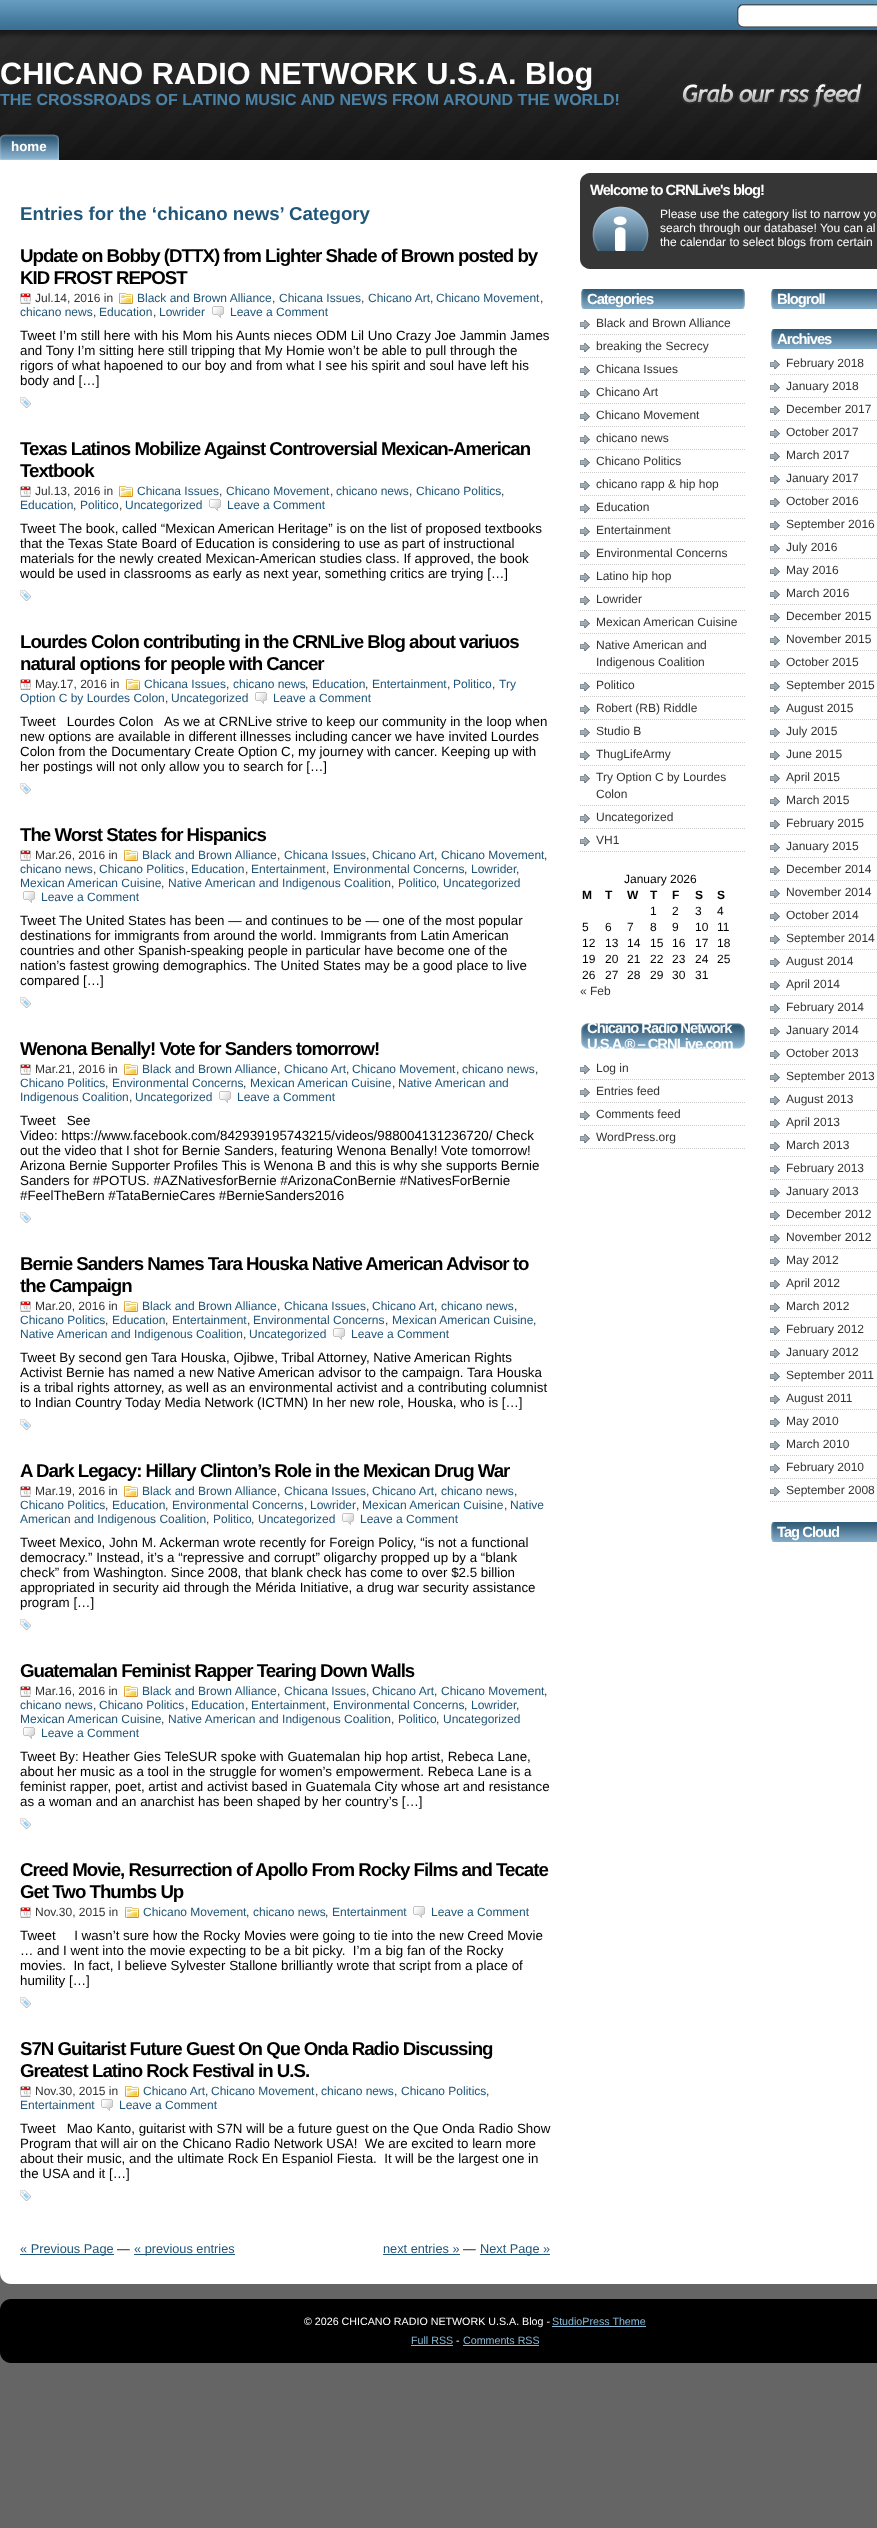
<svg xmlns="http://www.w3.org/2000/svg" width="877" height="2528">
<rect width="100%" height="100%" fill="#656565"/>
<image x="0" y="0" width="877" height="160" href="media/1.png"/>
<image x="737" y="4" width="140" height="24" href="media/2.png"/>
<text x="0" y="84" style="font-family:Liberation Sans;font-size:30.7px;font-weight:bold;fill:#fff">CHICANO RADIO NETWORK U.S.A. Blog</text>
<text x="0" y="105" style="font-family:Liberation Sans;font-size:16px;font-weight:bold;fill:#4c82a6">THE CROSSROADS OF LATINO MUSIC AND NEWS FROM AROUND THE WORLD!</text>
<image x="681" y="83" width="182" height="26" href="media/3.png"/>
<image x="0" y="134" width="10" height="26" href="media/4.png"/>
<image x="10" y="134" width="49" height="26" href="media/5.png"/>
<text x="11" y="151" style="font-family:Liberation Sans;font-size:13.35px;font-weight:bold;fill:#fff">home</text>
<rect y="160" width="877" height="2111" fill="#fff"/>
<text x="20" y="220" style="font-family:Liberation Sans;font-size:18.7px;font-weight:bold;fill:#215679">Entries for the ‘chicano news’ Category</text>
<text x="20" y="262" style="font-family:Liberation Sans;font-size:18.7px;font-weight:bold;letter-spacing:-1px;fill:#000">Update on Bobby (DTTX) from Lighter Shade of Brown posted by</text>
<text x="20" y="284" style="font-family:Liberation Sans;font-size:18.7px;font-weight:bold;letter-spacing:-1px;fill:#000">KID FROST REPOST</text>
<image x="20" y="293" width="11" height="11" href="media/6.png"/>
<text x="35" y="302" style="font-family:Liberation Sans;font-size:12px;fill:#333">Jul.14, 2016 in</text>
<image x="119" y="293" width="14" height="11" href="media/7.png"/>
<text x="137" y="302" style="font-family:Liberation Sans;font-size:12px;fill:#215679">Black and Brown Alliance</text>
<text x="272" y="302" style="font-family:Liberation Sans;font-size:12px;fill:#333">,</text>
<text x="279" y="302" style="font-family:Liberation Sans;font-size:12px;fill:#215679">Chicana Issues</text>
<text x="361" y="302" style="font-family:Liberation Sans;font-size:12px;fill:#333">,</text>
<text x="368" y="302" style="font-family:Liberation Sans;font-size:12px;fill:#215679">Chicano Art</text>
<text x="430" y="302" style="font-family:Liberation Sans;font-size:12px;fill:#333">,</text>
<text x="436" y="302" style="font-family:Liberation Sans;font-size:12px;fill:#215679">Chicano Movement</text>
<text x="540" y="302" style="font-family:Liberation Sans;font-size:12px;fill:#333">,</text>
<text x="20" y="316" style="font-family:Liberation Sans;font-size:12px;fill:#215679">chicano news</text>
<text x="93" y="316" style="font-family:Liberation Sans;font-size:12px;fill:#333">,</text>
<text x="99" y="316" style="font-family:Liberation Sans;font-size:12px;fill:#215679">Education</text>
<text x="153" y="316" style="font-family:Liberation Sans;font-size:12px;fill:#333">,</text>
<text x="159" y="316" style="font-family:Liberation Sans;font-size:12px;fill:#215679">Lowrider</text>
<image x="212" y="306" width="12" height="12" href="media/8.png"/>
<text x="230" y="316" style="font-family:Liberation Sans;font-size:12px;fill:#215679">Leave a Comment</text>
<text x="20" y="340" style="font-family:Liberation Sans;font-size:13.35px;fill:#000">Tweet I’m still here with his Mom his Aunts nieces ODM Lil Uno Crazy Joe Jammin James</text>
<text x="20" y="355" style="font-family:Liberation Sans;font-size:13.35px;fill:#000">and Tony I’m sitting here still tripping that My Homie won’t be able to pull through the</text>
<text x="20" y="370" style="font-family:Liberation Sans;font-size:13.35px;fill:#000">rigors of what hapoened to our boy and from what I see his spirit and soul have left his</text>
<text x="20" y="385" style="font-family:Liberation Sans;font-size:13.35px;fill:#000">body and […]</text>
<image x="20" y="397" width="11" height="11" href="media/9.png"/>
<text x="20" y="455" style="font-family:Liberation Sans;font-size:18.7px;font-weight:bold;letter-spacing:-1px;fill:#000">Texas Latinos Mobilize Against Controversial Mexican-American</text>
<text x="20" y="477" style="font-family:Liberation Sans;font-size:18.7px;font-weight:bold;letter-spacing:-1px;fill:#000">Textbook</text>
<image x="20" y="486" width="11" height="11" href="media/6.png"/>
<text x="35" y="495" style="font-family:Liberation Sans;font-size:12px;fill:#333">Jul.13, 2016 in</text>
<image x="119" y="486" width="14" height="11" href="media/7.png"/>
<text x="137" y="495" style="font-family:Liberation Sans;font-size:12px;fill:#215679">Chicana Issues</text>
<text x="219" y="495" style="font-family:Liberation Sans;font-size:12px;fill:#333">,</text>
<text x="226" y="495" style="font-family:Liberation Sans;font-size:12px;fill:#215679">Chicano Movement</text>
<text x="330" y="495" style="font-family:Liberation Sans;font-size:12px;fill:#333">,</text>
<text x="336" y="495" style="font-family:Liberation Sans;font-size:12px;fill:#215679">chicano news</text>
<text x="409" y="495" style="font-family:Liberation Sans;font-size:12px;fill:#333">,</text>
<text x="416" y="495" style="font-family:Liberation Sans;font-size:12px;fill:#215679">Chicano Politics</text>
<text x="501" y="495" style="font-family:Liberation Sans;font-size:12px;fill:#333">,</text>
<text x="20" y="509" style="font-family:Liberation Sans;font-size:12px;fill:#215679">Education</text>
<text x="73" y="509" style="font-family:Liberation Sans;font-size:12px;fill:#333">,</text>
<text x="80" y="509" style="font-family:Liberation Sans;font-size:12px;fill:#215679">Politico</text>
<text x="119" y="509" style="font-family:Liberation Sans;font-size:12px;fill:#333">,</text>
<text x="125" y="509" style="font-family:Liberation Sans;font-size:12px;fill:#215679">Uncategorized</text>
<image x="209" y="499" width="12" height="12" href="media/8.png"/>
<text x="227" y="509" style="font-family:Liberation Sans;font-size:12px;fill:#215679">Leave a Comment</text>
<text x="20" y="533" style="font-family:Liberation Sans;font-size:13.35px;fill:#000">Tweet The book, called “Mexican American Heritage” is on the list of proposed textbooks</text>
<text x="20" y="548" style="font-family:Liberation Sans;font-size:13.35px;fill:#000">that the Texas State Board of Education is considering to use as part of instructional</text>
<text x="20" y="563" style="font-family:Liberation Sans;font-size:13.35px;fill:#000">materials for the newly created Mexican-American studies class. If approved, the book</text>
<text x="20" y="578" style="font-family:Liberation Sans;font-size:13.35px;fill:#000">would be used in classrooms as early as next year, something critics are trying […]</text>
<image x="20" y="590" width="11" height="11" href="media/9.png"/>
<text x="20" y="648" style="font-family:Liberation Sans;font-size:18.7px;font-weight:bold;letter-spacing:-1px;fill:#000">Lourdes Colon contributing in the CRNLive Blog about variuos</text>
<text x="20" y="670" style="font-family:Liberation Sans;font-size:18.7px;font-weight:bold;letter-spacing:-1px;fill:#000">natural options for people with Cancer</text>
<image x="20" y="679" width="11" height="11" href="media/6.png"/>
<text x="35" y="688" style="font-family:Liberation Sans;font-size:12px;fill:#333">May.17, 2016 in</text>
<image x="126" y="679" width="14" height="11" href="media/7.png"/>
<text x="144" y="688" style="font-family:Liberation Sans;font-size:12px;fill:#215679">Chicana Issues</text>
<text x="226" y="688" style="font-family:Liberation Sans;font-size:12px;fill:#333">,</text>
<text x="233" y="688" style="font-family:Liberation Sans;font-size:12px;fill:#215679">chicano news</text>
<text x="305" y="688" style="font-family:Liberation Sans;font-size:12px;fill:#333">,</text>
<text x="312" y="688" style="font-family:Liberation Sans;font-size:12px;fill:#215679">Education</text>
<text x="365" y="688" style="font-family:Liberation Sans;font-size:12px;fill:#333">,</text>
<text x="372" y="688" style="font-family:Liberation Sans;font-size:12px;fill:#215679">Entertainment</text>
<text x="447" y="688" style="font-family:Liberation Sans;font-size:12px;fill:#333">,</text>
<text x="453" y="688" style="font-family:Liberation Sans;font-size:12px;fill:#215679">Politico</text>
<text x="492" y="688" style="font-family:Liberation Sans;font-size:12px;fill:#333">,</text>
<text x="499" y="688" style="font-family:Liberation Sans;font-size:12px;fill:#215679">Try</text>
<text x="20" y="702" style="font-family:Liberation Sans;font-size:12px;fill:#215679">Option C by Lourdes Colon</text>
<text x="165" y="702" style="font-family:Liberation Sans;font-size:12px;fill:#333">,</text>
<text x="171" y="702" style="font-family:Liberation Sans;font-size:12px;fill:#215679">Uncategorized</text>
<image x="255" y="692" width="12" height="12" href="media/8.png"/>
<text x="273" y="702" style="font-family:Liberation Sans;font-size:12px;fill:#215679">Leave a Comment</text>
<text x="20" y="726" style="font-family:Liberation Sans;font-size:13.35px;fill:#000" xml:space="preserve">Tweet   Lourdes Colon   As we at CRNLive strive to keep our community in the loop when</text>
<text x="20" y="741" style="font-family:Liberation Sans;font-size:13.35px;fill:#000">new options are available in different illnesses including cancer we have invited Lourdes</text>
<text x="20" y="756" style="font-family:Liberation Sans;font-size:13.35px;fill:#000">Colon from the Documentary Create Option C, my journey with cancer. Keeping up with</text>
<text x="20" y="771" style="font-family:Liberation Sans;font-size:13.35px;fill:#000">her postings will not only allow you to search for […]</text>
<image x="20" y="783" width="11" height="11" href="media/9.png"/>
<text x="20" y="841" style="font-family:Liberation Sans;font-size:18.7px;font-weight:bold;letter-spacing:-1px;fill:#000">The Worst States for Hispanics</text>
<image x="20" y="850" width="11" height="11" href="media/6.png"/>
<text x="35" y="859" style="font-family:Liberation Sans;font-size:12px;fill:#333">Mar.26, 2016 in</text>
<image x="124" y="850" width="14" height="11" href="media/7.png"/>
<text x="142" y="859" style="font-family:Liberation Sans;font-size:12px;fill:#215679">Black and Brown Alliance</text>
<text x="277" y="859" style="font-family:Liberation Sans;font-size:12px;fill:#333">,</text>
<text x="284" y="859" style="font-family:Liberation Sans;font-size:12px;fill:#215679">Chicana Issues</text>
<text x="366" y="859" style="font-family:Liberation Sans;font-size:12px;fill:#333">,</text>
<text x="372" y="859" style="font-family:Liberation Sans;font-size:12px;fill:#215679">Chicano Art</text>
<text x="434" y="859" style="font-family:Liberation Sans;font-size:12px;fill:#333">,</text>
<text x="441" y="859" style="font-family:Liberation Sans;font-size:12px;fill:#215679">Chicano Movement</text>
<text x="544" y="859" style="font-family:Liberation Sans;font-size:12px;fill:#333">,</text>
<text x="20" y="873" style="font-family:Liberation Sans;font-size:12px;fill:#215679">chicano news</text>
<text x="93" y="873" style="font-family:Liberation Sans;font-size:12px;fill:#333">,</text>
<text x="99" y="873" style="font-family:Liberation Sans;font-size:12px;fill:#215679">Chicano Politics</text>
<text x="185" y="873" style="font-family:Liberation Sans;font-size:12px;fill:#333">,</text>
<text x="191" y="873" style="font-family:Liberation Sans;font-size:12px;fill:#215679">Education</text>
<text x="245" y="873" style="font-family:Liberation Sans;font-size:12px;fill:#333">,</text>
<text x="251" y="873" style="font-family:Liberation Sans;font-size:12px;fill:#215679">Entertainment</text>
<text x="326" y="873" style="font-family:Liberation Sans;font-size:12px;fill:#333">,</text>
<text x="333" y="873" style="font-family:Liberation Sans;font-size:12px;fill:#215679">Environmental Concerns</text>
<text x="464" y="873" style="font-family:Liberation Sans;font-size:12px;fill:#333">,</text>
<text x="471" y="873" style="font-family:Liberation Sans;font-size:12px;fill:#215679">Lowrider</text>
<text x="516" y="873" style="font-family:Liberation Sans;font-size:12px;fill:#333">,</text>
<text x="20" y="887" style="font-family:Liberation Sans;font-size:12px;fill:#215679">Mexican American Cuisine</text>
<text x="161" y="887" style="font-family:Liberation Sans;font-size:12px;fill:#333">,</text>
<text x="168" y="887" style="font-family:Liberation Sans;font-size:12px;fill:#215679">Native American and Indigenous Coalition</text>
<text x="391" y="887" style="font-family:Liberation Sans;font-size:12px;fill:#333">,</text>
<text x="398" y="887" style="font-family:Liberation Sans;font-size:12px;fill:#215679">Politico</text>
<text x="436" y="887" style="font-family:Liberation Sans;font-size:12px;fill:#333">,</text>
<text x="443" y="887" style="font-family:Liberation Sans;font-size:12px;fill:#215679">Uncategorized</text>
<image x="23" y="891" width="12" height="12" href="media/8.png"/>
<text x="41" y="901" style="font-family:Liberation Sans;font-size:12px;fill:#215679">Leave a Comment</text>
<text x="20" y="925" style="font-family:Liberation Sans;font-size:13.35px;fill:#000">Tweet The United States has been — and continues to be — one of the most popular</text>
<text x="20" y="940" style="font-family:Liberation Sans;font-size:13.35px;fill:#000">destinations for immigrants from around the world. Immigrants from Latin American</text>
<text x="20" y="955" style="font-family:Liberation Sans;font-size:13.35px;fill:#000">countries and other Spanish-speaking people in particular have become one of the</text>
<text x="20" y="970" style="font-family:Liberation Sans;font-size:13.35px;fill:#000">nation’s fastest growing demographics. The United States may be a good place to live</text>
<text x="20" y="985" style="font-family:Liberation Sans;font-size:13.35px;fill:#000">compared […]</text>
<image x="20" y="997" width="11" height="11" href="media/9.png"/>
<text x="20" y="1055" style="font-family:Liberation Sans;font-size:18.7px;font-weight:bold;letter-spacing:-1px;fill:#000">Wenona Benally! Vote for Sanders tomorrow!</text>
<image x="20" y="1064" width="11" height="11" href="media/6.png"/>
<text x="35" y="1073" style="font-family:Liberation Sans;font-size:12px;fill:#333">Mar.21, 2016 in</text>
<image x="124" y="1064" width="14" height="11" href="media/7.png"/>
<text x="142" y="1073" style="font-family:Liberation Sans;font-size:12px;fill:#215679">Black and Brown Alliance</text>
<text x="277" y="1073" style="font-family:Liberation Sans;font-size:12px;fill:#333">,</text>
<text x="284" y="1073" style="font-family:Liberation Sans;font-size:12px;fill:#215679">Chicano Art</text>
<text x="346" y="1073" style="font-family:Liberation Sans;font-size:12px;fill:#333">,</text>
<text x="352" y="1073" style="font-family:Liberation Sans;font-size:12px;fill:#215679">Chicano Movement</text>
<text x="456" y="1073" style="font-family:Liberation Sans;font-size:12px;fill:#333">,</text>
<text x="462" y="1073" style="font-family:Liberation Sans;font-size:12px;fill:#215679">chicano news</text>
<text x="535" y="1073" style="font-family:Liberation Sans;font-size:12px;fill:#333">,</text>
<text x="20" y="1087" style="font-family:Liberation Sans;font-size:12px;fill:#215679">Chicano Politics</text>
<text x="105" y="1087" style="font-family:Liberation Sans;font-size:12px;fill:#333">,</text>
<text x="112" y="1087" style="font-family:Liberation Sans;font-size:12px;fill:#215679">Environmental Concerns</text>
<text x="243" y="1087" style="font-family:Liberation Sans;font-size:12px;fill:#333">,</text>
<text x="250" y="1087" style="font-family:Liberation Sans;font-size:12px;fill:#215679">Mexican American Cuisine</text>
<text x="392" y="1087" style="font-family:Liberation Sans;font-size:12px;fill:#333">,</text>
<text x="398" y="1087" style="font-family:Liberation Sans;font-size:12px;fill:#215679">Native American and</text>
<text x="20" y="1101" style="font-family:Liberation Sans;font-size:12px;fill:#215679">Indigenous Coalition</text>
<text x="129" y="1101" style="font-family:Liberation Sans;font-size:12px;fill:#333">,</text>
<text x="135" y="1101" style="font-family:Liberation Sans;font-size:12px;fill:#215679">Uncategorized</text>
<image x="219" y="1091" width="12" height="12" href="media/8.png"/>
<text x="237" y="1101" style="font-family:Liberation Sans;font-size:12px;fill:#215679">Leave a Comment</text>
<text x="20" y="1125" style="font-family:Liberation Sans;font-size:13.35px;fill:#000" xml:space="preserve">Tweet   See</text>
<text x="20" y="1140" style="font-family:Liberation Sans;font-size:13.35px;fill:#000">Video: https://www.facebook.com/842939195743215/videos/988004131236720/ Check</text>
<text x="20" y="1155" style="font-family:Liberation Sans;font-size:13.35px;fill:#000">out the video that I shot for Bernie Sanders, featuring Wenona Benally! Vote tomorrow!</text>
<text x="20" y="1170" style="font-family:Liberation Sans;font-size:13.35px;fill:#000">Arizona Bernie Supporter Profiles This is Wenona B and this is why she supports Bernie</text>
<text x="20" y="1185" style="font-family:Liberation Sans;font-size:13.35px;fill:#000">Sanders for #POTUS. #AZNativesforBernie #ArizonaConBernie #NativesForBernie</text>
<text x="20" y="1200" style="font-family:Liberation Sans;font-size:13.35px;fill:#000">#FeelTheBern #TataBernieCares #BernieSanders2016</text>
<image x="20" y="1212" width="11" height="11" href="media/9.png"/>
<text x="20" y="1270" style="font-family:Liberation Sans;font-size:18.7px;font-weight:bold;letter-spacing:-1px;fill:#000">Bernie Sanders Names Tara Houska Native American Advisor to</text>
<text x="20" y="1292" style="font-family:Liberation Sans;font-size:18.7px;font-weight:bold;letter-spacing:-1px;fill:#000">the Campaign</text>
<image x="20" y="1301" width="11" height="11" href="media/6.png"/>
<text x="35" y="1310" style="font-family:Liberation Sans;font-size:12px;fill:#333">Mar.20, 2016 in</text>
<image x="124" y="1301" width="14" height="11" href="media/7.png"/>
<text x="142" y="1310" style="font-family:Liberation Sans;font-size:12px;fill:#215679">Black and Brown Alliance</text>
<text x="277" y="1310" style="font-family:Liberation Sans;font-size:12px;fill:#333">,</text>
<text x="284" y="1310" style="font-family:Liberation Sans;font-size:12px;fill:#215679">Chicana Issues</text>
<text x="366" y="1310" style="font-family:Liberation Sans;font-size:12px;fill:#333">,</text>
<text x="372" y="1310" style="font-family:Liberation Sans;font-size:12px;fill:#215679">Chicano Art</text>
<text x="434" y="1310" style="font-family:Liberation Sans;font-size:12px;fill:#333">,</text>
<text x="441" y="1310" style="font-family:Liberation Sans;font-size:12px;fill:#215679">chicano news</text>
<text x="514" y="1310" style="font-family:Liberation Sans;font-size:12px;fill:#333">,</text>
<text x="20" y="1324" style="font-family:Liberation Sans;font-size:12px;fill:#215679">Chicano Politics</text>
<text x="105" y="1324" style="font-family:Liberation Sans;font-size:12px;fill:#333">,</text>
<text x="112" y="1324" style="font-family:Liberation Sans;font-size:12px;fill:#215679">Education</text>
<text x="165" y="1324" style="font-family:Liberation Sans;font-size:12px;fill:#333">,</text>
<text x="172" y="1324" style="font-family:Liberation Sans;font-size:12px;fill:#215679">Entertainment</text>
<text x="247" y="1324" style="font-family:Liberation Sans;font-size:12px;fill:#333">,</text>
<text x="253" y="1324" style="font-family:Liberation Sans;font-size:12px;fill:#215679">Environmental Concerns</text>
<text x="385" y="1324" style="font-family:Liberation Sans;font-size:12px;fill:#333">,</text>
<text x="392" y="1324" style="font-family:Liberation Sans;font-size:12px;fill:#215679">Mexican American Cuisine</text>
<text x="533" y="1324" style="font-family:Liberation Sans;font-size:12px;fill:#333">,</text>
<text x="20" y="1338" style="font-family:Liberation Sans;font-size:12px;fill:#215679">Native American and Indigenous Coalition</text>
<text x="243" y="1338" style="font-family:Liberation Sans;font-size:12px;fill:#333">,</text>
<text x="249" y="1338" style="font-family:Liberation Sans;font-size:12px;fill:#215679">Uncategorized</text>
<image x="333" y="1328" width="12" height="12" href="media/8.png"/>
<text x="351" y="1338" style="font-family:Liberation Sans;font-size:12px;fill:#215679">Leave a Comment</text>
<text x="20" y="1362" style="font-family:Liberation Sans;font-size:13.35px;fill:#000">Tweet By second gen Tara Houska, Ojibwe, Tribal Attorney, Native American Rights</text>
<text x="20" y="1377" style="font-family:Liberation Sans;font-size:13.35px;fill:#000">Activist Bernie has named a new Native American advisor to the campaign. Tara Houska</text>
<text x="20" y="1392" style="font-family:Liberation Sans;font-size:13.35px;fill:#000">is a tribal rights attorney, as well as an environmental activist and a contributing columnist</text>
<text x="20" y="1407" style="font-family:Liberation Sans;font-size:13.35px;fill:#000">to Indian Country Today Media Network (ICTMN) In her new role, Houska, who is […]</text>
<image x="20" y="1419" width="11" height="11" href="media/9.png"/>
<text x="20" y="1477" style="font-family:Liberation Sans;font-size:18.7px;font-weight:bold;letter-spacing:-1px;fill:#000">A Dark Legacy: Hillary Clinton’s Role in the Mexican Drug War</text>
<image x="20" y="1486" width="11" height="11" href="media/6.png"/>
<text x="35" y="1495" style="font-family:Liberation Sans;font-size:12px;fill:#333">Mar.19, 2016 in</text>
<image x="124" y="1486" width="14" height="11" href="media/7.png"/>
<text x="142" y="1495" style="font-family:Liberation Sans;font-size:12px;fill:#215679">Black and Brown Alliance</text>
<text x="277" y="1495" style="font-family:Liberation Sans;font-size:12px;fill:#333">,</text>
<text x="284" y="1495" style="font-family:Liberation Sans;font-size:12px;fill:#215679">Chicana Issues</text>
<text x="366" y="1495" style="font-family:Liberation Sans;font-size:12px;fill:#333">,</text>
<text x="372" y="1495" style="font-family:Liberation Sans;font-size:12px;fill:#215679">Chicano Art</text>
<text x="434" y="1495" style="font-family:Liberation Sans;font-size:12px;fill:#333">,</text>
<text x="441" y="1495" style="font-family:Liberation Sans;font-size:12px;fill:#215679">chicano news</text>
<text x="514" y="1495" style="font-family:Liberation Sans;font-size:12px;fill:#333">,</text>
<text x="20" y="1509" style="font-family:Liberation Sans;font-size:12px;fill:#215679">Chicano Politics</text>
<text x="105" y="1509" style="font-family:Liberation Sans;font-size:12px;fill:#333">,</text>
<text x="112" y="1509" style="font-family:Liberation Sans;font-size:12px;fill:#215679">Education</text>
<text x="165" y="1509" style="font-family:Liberation Sans;font-size:12px;fill:#333">,</text>
<text x="172" y="1509" style="font-family:Liberation Sans;font-size:12px;fill:#215679">Environmental Concerns</text>
<text x="304" y="1509" style="font-family:Liberation Sans;font-size:12px;fill:#333">,</text>
<text x="310" y="1509" style="font-family:Liberation Sans;font-size:12px;fill:#215679">Lowrider</text>
<text x="356" y="1509" style="font-family:Liberation Sans;font-size:12px;fill:#333">,</text>
<text x="362" y="1509" style="font-family:Liberation Sans;font-size:12px;fill:#215679">Mexican American Cuisine</text>
<text x="504" y="1509" style="font-family:Liberation Sans;font-size:12px;fill:#333">,</text>
<text x="510" y="1509" style="font-family:Liberation Sans;font-size:12px;fill:#215679">Native</text>
<text x="20" y="1523" style="font-family:Liberation Sans;font-size:12px;fill:#215679">American and Indigenous Coalition</text>
<text x="206" y="1523" style="font-family:Liberation Sans;font-size:12px;fill:#333">,</text>
<text x="213" y="1523" style="font-family:Liberation Sans;font-size:12px;fill:#215679">Politico</text>
<text x="251" y="1523" style="font-family:Liberation Sans;font-size:12px;fill:#333">,</text>
<text x="258" y="1523" style="font-family:Liberation Sans;font-size:12px;fill:#215679">Uncategorized</text>
<image x="342" y="1513" width="12" height="12" href="media/8.png"/>
<text x="360" y="1523" style="font-family:Liberation Sans;font-size:12px;fill:#215679">Leave a Comment</text>
<text x="20" y="1547" style="font-family:Liberation Sans;font-size:13.35px;fill:#000">Tweet Mexico, John M. Ackerman wrote recently for Foreign Policy, “is not a functional</text>
<text x="20" y="1562" style="font-family:Liberation Sans;font-size:13.35px;fill:#000">democracy.” Instead, it’s a “repressive and corrupt” oligarchy propped up by a “blank</text>
<text x="20" y="1577" style="font-family:Liberation Sans;font-size:13.35px;fill:#000">check” from Washington. Since 2008, that blank check has come to over $2.5 billion</text>
<text x="20" y="1592" style="font-family:Liberation Sans;font-size:13.35px;fill:#000">appropriated in security aid through the Mérida Initiative, a drug war security assistance</text>
<text x="20" y="1607" style="font-family:Liberation Sans;font-size:13.35px;fill:#000">program […]</text>
<image x="20" y="1619" width="11" height="11" href="media/9.png"/>
<text x="20" y="1677" style="font-family:Liberation Sans;font-size:18.7px;font-weight:bold;letter-spacing:-1px;fill:#000">Guatemalan Feminist Rapper Tearing Down Walls</text>
<image x="20" y="1686" width="11" height="11" href="media/6.png"/>
<text x="35" y="1695" style="font-family:Liberation Sans;font-size:12px;fill:#333">Mar.16, 2016 in</text>
<image x="124" y="1686" width="14" height="11" href="media/7.png"/>
<text x="142" y="1695" style="font-family:Liberation Sans;font-size:12px;fill:#215679">Black and Brown Alliance</text>
<text x="277" y="1695" style="font-family:Liberation Sans;font-size:12px;fill:#333">,</text>
<text x="284" y="1695" style="font-family:Liberation Sans;font-size:12px;fill:#215679">Chicana Issues</text>
<text x="366" y="1695" style="font-family:Liberation Sans;font-size:12px;fill:#333">,</text>
<text x="372" y="1695" style="font-family:Liberation Sans;font-size:12px;fill:#215679">Chicano Art</text>
<text x="434" y="1695" style="font-family:Liberation Sans;font-size:12px;fill:#333">,</text>
<text x="441" y="1695" style="font-family:Liberation Sans;font-size:12px;fill:#215679">Chicano Movement</text>
<text x="544" y="1695" style="font-family:Liberation Sans;font-size:12px;fill:#333">,</text>
<text x="20" y="1709" style="font-family:Liberation Sans;font-size:12px;fill:#215679">chicano news</text>
<text x="93" y="1709" style="font-family:Liberation Sans;font-size:12px;fill:#333">,</text>
<text x="99" y="1709" style="font-family:Liberation Sans;font-size:12px;fill:#215679">Chicano Politics</text>
<text x="185" y="1709" style="font-family:Liberation Sans;font-size:12px;fill:#333">,</text>
<text x="191" y="1709" style="font-family:Liberation Sans;font-size:12px;fill:#215679">Education</text>
<text x="245" y="1709" style="font-family:Liberation Sans;font-size:12px;fill:#333">,</text>
<text x="251" y="1709" style="font-family:Liberation Sans;font-size:12px;fill:#215679">Entertainment</text>
<text x="326" y="1709" style="font-family:Liberation Sans;font-size:12px;fill:#333">,</text>
<text x="333" y="1709" style="font-family:Liberation Sans;font-size:12px;fill:#215679">Environmental Concerns</text>
<text x="464" y="1709" style="font-family:Liberation Sans;font-size:12px;fill:#333">,</text>
<text x="471" y="1709" style="font-family:Liberation Sans;font-size:12px;fill:#215679">Lowrider</text>
<text x="516" y="1709" style="font-family:Liberation Sans;font-size:12px;fill:#333">,</text>
<text x="20" y="1723" style="font-family:Liberation Sans;font-size:12px;fill:#215679">Mexican American Cuisine</text>
<text x="161" y="1723" style="font-family:Liberation Sans;font-size:12px;fill:#333">,</text>
<text x="168" y="1723" style="font-family:Liberation Sans;font-size:12px;fill:#215679">Native American and Indigenous Coalition</text>
<text x="391" y="1723" style="font-family:Liberation Sans;font-size:12px;fill:#333">,</text>
<text x="398" y="1723" style="font-family:Liberation Sans;font-size:12px;fill:#215679">Politico</text>
<text x="436" y="1723" style="font-family:Liberation Sans;font-size:12px;fill:#333">,</text>
<text x="443" y="1723" style="font-family:Liberation Sans;font-size:12px;fill:#215679">Uncategorized</text>
<image x="23" y="1727" width="12" height="12" href="media/8.png"/>
<text x="41" y="1737" style="font-family:Liberation Sans;font-size:12px;fill:#215679">Leave a Comment</text>
<text x="20" y="1761" style="font-family:Liberation Sans;font-size:13.35px;fill:#000">Tweet By: Heather Gies TeleSUR spoke with Guatemalan hip hop artist, Rebeca Lane,</text>
<text x="20" y="1776" style="font-family:Liberation Sans;font-size:13.35px;fill:#000">about her music as a tool in the struggle for women’s empowerment. Rebeca Lane is a</text>
<text x="20" y="1791" style="font-family:Liberation Sans;font-size:13.35px;fill:#000">feminist rapper, poet, artist and activist based in Guatemala City whose art and resistance</text>
<text x="20" y="1806" style="font-family:Liberation Sans;font-size:13.35px;fill:#000">as a woman and an anarchist has been shaped by her country’s […]</text>
<image x="20" y="1818" width="11" height="11" href="media/9.png"/>
<text x="20" y="1876" style="font-family:Liberation Sans;font-size:18.7px;font-weight:bold;letter-spacing:-1px;fill:#000">Creed Movie, Resurrection of Apollo From Rocky Films and Tecate</text>
<text x="20" y="1898" style="font-family:Liberation Sans;font-size:18.7px;font-weight:bold;letter-spacing:-1px;fill:#000">Get Two Thumbs Up</text>
<image x="20" y="1907" width="11" height="11" href="media/6.png"/>
<text x="35" y="1916" style="font-family:Liberation Sans;font-size:12px;fill:#333">Nov.30, 2015 in</text>
<image x="125" y="1907" width="14" height="11" href="media/7.png"/>
<text x="143" y="1916" style="font-family:Liberation Sans;font-size:12px;fill:#215679">Chicano Movement</text>
<text x="246" y="1916" style="font-family:Liberation Sans;font-size:12px;fill:#333">,</text>
<text x="253" y="1916" style="font-family:Liberation Sans;font-size:12px;fill:#215679">chicano news</text>
<text x="325" y="1916" style="font-family:Liberation Sans;font-size:12px;fill:#333">,</text>
<text x="332" y="1916" style="font-family:Liberation Sans;font-size:12px;fill:#215679">Entertainment</text>
<image x="413" y="1906" width="12" height="12" href="media/8.png"/>
<text x="431" y="1916" style="font-family:Liberation Sans;font-size:12px;fill:#215679">Leave a Comment</text>
<text x="20" y="1940" style="font-family:Liberation Sans;font-size:13.35px;fill:#000" xml:space="preserve">Tweet     I wasn’t sure how the Rocky Movies were going to tie into the new Creed Movie</text>
<text x="20" y="1955" style="font-family:Liberation Sans;font-size:13.35px;fill:#000" xml:space="preserve">… and I went into the movie expecting to be a bit picky.  I’m a big fan of the Rocky</text>
<text x="20" y="1970" style="font-family:Liberation Sans;font-size:13.35px;fill:#000" xml:space="preserve">movies.  In fact, I believe Sylvester Stallone brilliantly wrote that script from a place of</text>
<text x="20" y="1985" style="font-family:Liberation Sans;font-size:13.35px;fill:#000">humility […]</text>
<image x="20" y="1997" width="11" height="11" href="media/9.png"/>
<text x="20" y="2055" style="font-family:Liberation Sans;font-size:18.7px;font-weight:bold;letter-spacing:-1px;fill:#000">S7N Guitarist Future Guest On Que Onda Radio Discussing</text>
<text x="20" y="2077" style="font-family:Liberation Sans;font-size:18.7px;font-weight:bold;letter-spacing:-1px;fill:#000">Greatest Latino Rock Festival in U.S.</text>
<image x="20" y="2086" width="11" height="11" href="media/6.png"/>
<text x="35" y="2095" style="font-family:Liberation Sans;font-size:12px;fill:#333">Nov.30, 2015 in</text>
<image x="125" y="2086" width="14" height="11" href="media/7.png"/>
<text x="143" y="2095" style="font-family:Liberation Sans;font-size:12px;fill:#215679">Chicano Art</text>
<text x="205" y="2095" style="font-family:Liberation Sans;font-size:12px;fill:#333">,</text>
<text x="211" y="2095" style="font-family:Liberation Sans;font-size:12px;fill:#215679">Chicano Movement</text>
<text x="315" y="2095" style="font-family:Liberation Sans;font-size:12px;fill:#333">,</text>
<text x="321" y="2095" style="font-family:Liberation Sans;font-size:12px;fill:#215679">chicano news</text>
<text x="394" y="2095" style="font-family:Liberation Sans;font-size:12px;fill:#333">,</text>
<text x="401" y="2095" style="font-family:Liberation Sans;font-size:12px;fill:#215679">Chicano Politics</text>
<text x="486" y="2095" style="font-family:Liberation Sans;font-size:12px;fill:#333">,</text>
<text x="20" y="2109" style="font-family:Liberation Sans;font-size:12px;fill:#215679">Entertainment</text>
<image x="101" y="2099" width="12" height="12" href="media/8.png"/>
<text x="119" y="2109" style="font-family:Liberation Sans;font-size:12px;fill:#215679">Leave a Comment</text>
<text x="20" y="2133" style="font-family:Liberation Sans;font-size:13.35px;fill:#000" xml:space="preserve">Tweet   Mao Kanto, guitarist with S7N will be a future guest on the Que Onda Radio Show</text>
<text x="20" y="2148" style="font-family:Liberation Sans;font-size:13.35px;fill:#000" xml:space="preserve">Program that will air on the Chicano Radio Network USA!  We are excited to learn more</text>
<text x="20" y="2163" style="font-family:Liberation Sans;font-size:13.35px;fill:#000" xml:space="preserve">about their music, and the ultimate Rock En Espaniol Fiesta.  It will be the largest one in</text>
<text x="20" y="2178" style="font-family:Liberation Sans;font-size:13.35px;fill:#000">the USA and it […]</text>
<image x="20" y="2190" width="11" height="11" href="media/9.png"/>
<rect x="20" y="2254" width="94" height="1" fill="#215679"/>
<text x="20" y="2253" style="font-family:Liberation Sans;font-size:12.75px;fill:#215679">« Previous Page</text>
<text x="117" y="2253" style="font-family:Liberation Sans;font-size:12.75px;fill:#000">—</text>
<rect x="134" y="2254" width="101" height="1" fill="#215679"/>
<text x="134" y="2253" style="font-family:Liberation Sans;font-size:12.75px;fill:#215679">« previous entries</text>
<text x="383" y="2253" style="font-family:Liberation Sans;font-size:12.75px;fill:#215679">next entries »</text>
<rect x="383" y="2254" width="77" height="1" fill="#215679"/>
<text x="463" y="2253" style="font-family:Liberation Sans;font-size:12.75px;fill:#000">—</text>
<rect x="480" y="2254" width="70" height="1" fill="#215679"/>
<text x="480" y="2253" style="font-family:Liberation Sans;font-size:12.75px;fill:#215679">Next Page »</text>
<image x="580" y="173" width="297" height="9" href="media/10.png"/>
<rect x="580" y="182" width="297" height="87" fill="#363636"/>
<text x="590" y="195" style="font-family:Liberation Sans;font-size:14.75px;font-weight:bold;letter-spacing:-1px;fill:#fff">Welcome to CRNLive's blog!</text>
<image x="592" y="206" width="57" height="45" href="media/11.png"/>
<text x="660" y="218" style="font-family:Liberation Sans;font-size:12px;fill:#fff">Please use the category list to narrow yo</text>
<text x="660" y="232" style="font-family:Liberation Sans;font-size:12px;fill:#fff">search through our database! You can al</text>
<text x="660" y="246" style="font-family:Liberation Sans;font-size:12px;fill:#fff">the calendar to select blogs from certain</text>
<image x="580" y="259" width="9" height="10" href="media/12.png"/>
<image x="581" y="289" width="164" height="20" href="media/13.png"/>
<text x="587" y="304" style="font-family:Liberation Sans;font-size:14.75px;font-weight:bold;letter-spacing:-1px;fill:#fff">Categories</text>
<image x="580" y="320" width="10" height="9" href="media/14.png"/>
<path d="M580 334.5h165" fill="none" stroke="#ccc" stroke-dasharray="1 1"/>
<text x="596" y="327" style="font-family:Liberation Sans;font-size:12px;fill:#333">Black and Brown Alliance</text>
<image x="580" y="343" width="10" height="9" href="media/14.png"/>
<path d="M580 357.5h165" fill="none" stroke="#ccc" stroke-dasharray="1 1"/>
<text x="596" y="350" style="font-family:Liberation Sans;font-size:12px;fill:#333">breaking the Secrecy</text>
<image x="580" y="366" width="10" height="9" href="media/14.png"/>
<path d="M580 380.5h165" fill="none" stroke="#ccc" stroke-dasharray="1 1"/>
<text x="596" y="373" style="font-family:Liberation Sans;font-size:12px;fill:#333">Chicana Issues</text>
<image x="580" y="389" width="10" height="9" href="media/14.png"/>
<path d="M580 403.5h165" fill="none" stroke="#ccc" stroke-dasharray="1 1"/>
<text x="596" y="396" style="font-family:Liberation Sans;font-size:12px;fill:#333">Chicano Art</text>
<image x="580" y="412" width="10" height="9" href="media/14.png"/>
<path d="M580 426.5h165" fill="none" stroke="#ccc" stroke-dasharray="1 1"/>
<text x="596" y="419" style="font-family:Liberation Sans;font-size:12px;fill:#333">Chicano Movement</text>
<image x="580" y="435" width="10" height="9" href="media/14.png"/>
<path d="M580 449.5h165" fill="none" stroke="#ccc" stroke-dasharray="1 1"/>
<text x="596" y="442" style="font-family:Liberation Sans;font-size:12px;fill:#333">chicano news</text>
<image x="580" y="458" width="10" height="9" href="media/14.png"/>
<path d="M580 472.5h165" fill="none" stroke="#ccc" stroke-dasharray="1 1"/>
<text x="596" y="465" style="font-family:Liberation Sans;font-size:12px;fill:#333">Chicano Politics</text>
<image x="580" y="481" width="10" height="9" href="media/14.png"/>
<path d="M580 495.5h165" fill="none" stroke="#ccc" stroke-dasharray="1 1"/>
<text x="596" y="488" style="font-family:Liberation Sans;font-size:12px;fill:#333">chicano rapp &amp; hip hop</text>
<image x="580" y="504" width="10" height="9" href="media/14.png"/>
<path d="M580 518.5h165" fill="none" stroke="#ccc" stroke-dasharray="1 1"/>
<text x="596" y="511" style="font-family:Liberation Sans;font-size:12px;fill:#333">Education</text>
<image x="580" y="527" width="10" height="9" href="media/14.png"/>
<path d="M580 541.5h165" fill="none" stroke="#ccc" stroke-dasharray="1 1"/>
<text x="596" y="534" style="font-family:Liberation Sans;font-size:12px;fill:#333">Entertainment</text>
<image x="580" y="550" width="10" height="9" href="media/14.png"/>
<path d="M580 564.5h165" fill="none" stroke="#ccc" stroke-dasharray="1 1"/>
<text x="596" y="557" style="font-family:Liberation Sans;font-size:12px;fill:#333">Environmental Concerns</text>
<image x="580" y="573" width="10" height="9" href="media/14.png"/>
<path d="M580 587.5h165" fill="none" stroke="#ccc" stroke-dasharray="1 1"/>
<text x="596" y="580" style="font-family:Liberation Sans;font-size:12px;fill:#333">Latino hip hop</text>
<image x="580" y="596" width="10" height="9" href="media/14.png"/>
<path d="M580 610.5h165" fill="none" stroke="#ccc" stroke-dasharray="1 1"/>
<text x="596" y="603" style="font-family:Liberation Sans;font-size:12px;fill:#333">Lowrider</text>
<image x="580" y="619" width="10" height="9" href="media/14.png"/>
<path d="M580 633.5h165" fill="none" stroke="#ccc" stroke-dasharray="1 1"/>
<text x="596" y="626" style="font-family:Liberation Sans;font-size:12px;fill:#333">Mexican American Cuisine</text>
<image x="580" y="642" width="10" height="9" href="media/14.png"/>
<path d="M580 673.5h165" fill="none" stroke="#ccc" stroke-dasharray="1 1"/>
<text x="596" y="649" style="font-family:Liberation Sans;font-size:12px;fill:#333">Native American and</text>
<text x="596" y="666" style="font-family:Liberation Sans;font-size:12px;fill:#333">Indigenous Coalition</text>
<image x="580" y="682" width="10" height="9" href="media/14.png"/>
<path d="M580 696.5h165" fill="none" stroke="#ccc" stroke-dasharray="1 1"/>
<text x="596" y="689" style="font-family:Liberation Sans;font-size:12px;fill:#333">Politico</text>
<image x="580" y="705" width="10" height="9" href="media/14.png"/>
<path d="M580 719.5h165" fill="none" stroke="#ccc" stroke-dasharray="1 1"/>
<text x="596" y="712" style="font-family:Liberation Sans;font-size:12px;fill:#333">Robert (RB) Riddle</text>
<image x="580" y="728" width="10" height="9" href="media/14.png"/>
<path d="M580 742.5h165" fill="none" stroke="#ccc" stroke-dasharray="1 1"/>
<text x="596" y="735" style="font-family:Liberation Sans;font-size:12px;fill:#333">Studio B</text>
<image x="580" y="751" width="10" height="9" href="media/14.png"/>
<path d="M580 765.5h165" fill="none" stroke="#ccc" stroke-dasharray="1 1"/>
<text x="596" y="758" style="font-family:Liberation Sans;font-size:12px;fill:#333">ThugLifeArmy</text>
<image x="580" y="774" width="10" height="9" href="media/14.png"/>
<path d="M580 805.5h165" fill="none" stroke="#ccc" stroke-dasharray="1 1"/>
<text x="596" y="781" style="font-family:Liberation Sans;font-size:12px;fill:#333">Try Option C by Lourdes</text>
<text x="596" y="798" style="font-family:Liberation Sans;font-size:12px;fill:#333">Colon</text>
<image x="580" y="814" width="10" height="9" href="media/14.png"/>
<path d="M580 828.5h165" fill="none" stroke="#ccc" stroke-dasharray="1 1"/>
<text x="596" y="821" style="font-family:Liberation Sans;font-size:12px;fill:#333">Uncategorized</text>
<image x="580" y="837" width="10" height="9" href="media/14.png"/>
<path d="M580 851.5h165" fill="none" stroke="#ccc" stroke-dasharray="1 1"/>
<text x="596" y="844" style="font-family:Liberation Sans;font-size:12px;fill:#333">VH1</text>
<text x="624" y="883" style="font-family:Liberation Sans;font-size:12px;fill:#000">January 2026</text>
<text x="582" y="899" style="font-family:Liberation Sans;font-size:12px;font-weight:bold;fill:#000">M</text>
<text x="605" y="899" style="font-family:Liberation Sans;font-size:12px;font-weight:bold;fill:#000">T</text>
<text x="627" y="899" style="font-family:Liberation Sans;font-size:12px;font-weight:bold;fill:#000">W</text>
<text x="650" y="899" style="font-family:Liberation Sans;font-size:12px;font-weight:bold;fill:#000">T</text>
<text x="672" y="899" style="font-family:Liberation Sans;font-size:12px;font-weight:bold;fill:#000">F</text>
<text x="695" y="899" style="font-family:Liberation Sans;font-size:12px;font-weight:bold;fill:#000">S</text>
<text x="717" y="899" style="font-family:Liberation Sans;font-size:12px;font-weight:bold;fill:#000">S</text>
<text x="650" y="915" style="font-family:Liberation Sans;font-size:12px;fill:#000">1</text>
<text x="672" y="915" style="font-family:Liberation Sans;font-size:12px;fill:#000">2</text>
<text x="695" y="915" style="font-family:Liberation Sans;font-size:12px;fill:#000">3</text>
<text x="717" y="915" style="font-family:Liberation Sans;font-size:12px;fill:#000">4</text>
<text x="582" y="931" style="font-family:Liberation Sans;font-size:12px;fill:#000">5</text>
<text x="605" y="931" style="font-family:Liberation Sans;font-size:12px;fill:#000">6</text>
<text x="627" y="931" style="font-family:Liberation Sans;font-size:12px;fill:#000">7</text>
<text x="650" y="931" style="font-family:Liberation Sans;font-size:12px;fill:#000">8</text>
<text x="672" y="931" style="font-family:Liberation Sans;font-size:12px;fill:#000">9</text>
<text x="695" y="931" style="font-family:Liberation Sans;font-size:12px;fill:#000">10</text>
<text x="717" y="931" style="font-family:Liberation Sans;font-size:12px;fill:#000">11</text>
<text x="582" y="947" style="font-family:Liberation Sans;font-size:12px;fill:#000">12</text>
<text x="605" y="947" style="font-family:Liberation Sans;font-size:12px;fill:#000">13</text>
<text x="627" y="947" style="font-family:Liberation Sans;font-size:12px;fill:#000">14</text>
<text x="650" y="947" style="font-family:Liberation Sans;font-size:12px;fill:#000">15</text>
<text x="672" y="947" style="font-family:Liberation Sans;font-size:12px;fill:#000">16</text>
<text x="695" y="947" style="font-family:Liberation Sans;font-size:12px;fill:#000">17</text>
<text x="717" y="947" style="font-family:Liberation Sans;font-size:12px;fill:#000">18</text>
<text x="582" y="963" style="font-family:Liberation Sans;font-size:12px;fill:#000">19</text>
<text x="605" y="963" style="font-family:Liberation Sans;font-size:12px;fill:#000">20</text>
<text x="627" y="963" style="font-family:Liberation Sans;font-size:12px;fill:#000">21</text>
<text x="650" y="963" style="font-family:Liberation Sans;font-size:12px;fill:#000">22</text>
<text x="672" y="963" style="font-family:Liberation Sans;font-size:12px;fill:#000">23</text>
<text x="695" y="963" style="font-family:Liberation Sans;font-size:12px;fill:#000">24</text>
<text x="717" y="963" style="font-family:Liberation Sans;font-size:12px;fill:#000">25</text>
<text x="582" y="979" style="font-family:Liberation Sans;font-size:12px;fill:#000">26</text>
<text x="605" y="979" style="font-family:Liberation Sans;font-size:12px;fill:#000">27</text>
<text x="627" y="979" style="font-family:Liberation Sans;font-size:12px;fill:#000">28</text>
<text x="650" y="979" style="font-family:Liberation Sans;font-size:12px;fill:#000">29</text>
<text x="672" y="979" style="font-family:Liberation Sans;font-size:12px;fill:#000">30</text>
<text x="695" y="979" style="font-family:Liberation Sans;font-size:12px;fill:#000">31</text>
<text x="580" y="995" style="font-family:Liberation Sans;font-size:12px;fill:#333">« Feb</text>
<image x="581" y="1023" width="164" height="26" href="media/15.png"/>
<text x="587" y="1033" style="font-family:Liberation Sans;font-size:14.75px;font-weight:bold;letter-spacing:-1px;fill:#fff">Chicano Radio Network</text>
<text x="587" y="1049" style="font-family:Liberation Sans;font-size:14.75px;font-weight:bold;letter-spacing:-1px;fill:#fff">U.S.A.® – CRNLive.com</text>
<image x="580" y="1065" width="10" height="9" href="media/14.png"/>
<path d="M580 1079.5h165" fill="none" stroke="#ccc" stroke-dasharray="1 1"/>
<text x="596" y="1072" style="font-family:Liberation Sans;font-size:12px;fill:#333">Log in</text>
<image x="580" y="1088" width="10" height="9" href="media/14.png"/>
<path d="M580 1102.5h165" fill="none" stroke="#ccc" stroke-dasharray="1 1"/>
<text x="596" y="1095" style="font-family:Liberation Sans;font-size:12px;fill:#333">Entries feed</text>
<image x="580" y="1111" width="10" height="9" href="media/14.png"/>
<path d="M580 1125.5h165" fill="none" stroke="#ccc" stroke-dasharray="1 1"/>
<text x="596" y="1118" style="font-family:Liberation Sans;font-size:12px;fill:#333">Comments feed</text>
<image x="580" y="1134" width="10" height="9" href="media/14.png"/>
<path d="M580 1148.5h165" fill="none" stroke="#ccc" stroke-dasharray="1 1"/>
<text x="596" y="1141" style="font-family:Liberation Sans;font-size:12px;fill:#333">WordPress.org</text>
<image x="771" y="289" width="106" height="20" href="media/16.png"/>
<text x="777" y="304" style="font-family:Liberation Sans;font-size:14.75px;font-weight:bold;letter-spacing:-1px;fill:#fff">Blogroll</text>
<image x="771" y="329" width="106" height="20" href="media/16.png"/>
<text x="777" y="344" style="font-family:Liberation Sans;font-size:14.75px;font-weight:bold;letter-spacing:-1px;fill:#fff">Archives</text>
<image x="770" y="360" width="10" height="9" href="media/14.png"/>
<path d="M770 374.5h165" fill="none" stroke="#ccc" stroke-dasharray="1 1"/>
<text x="786" y="367" style="font-family:Liberation Sans;font-size:12px;fill:#333">February 2018</text>
<image x="770" y="383" width="10" height="9" href="media/14.png"/>
<path d="M770 397.5h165" fill="none" stroke="#ccc" stroke-dasharray="1 1"/>
<text x="786" y="390" style="font-family:Liberation Sans;font-size:12px;fill:#333">January 2018</text>
<image x="770" y="406" width="10" height="9" href="media/14.png"/>
<path d="M770 420.5h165" fill="none" stroke="#ccc" stroke-dasharray="1 1"/>
<text x="786" y="413" style="font-family:Liberation Sans;font-size:12px;fill:#333">December 2017</text>
<image x="770" y="429" width="10" height="9" href="media/14.png"/>
<path d="M770 443.5h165" fill="none" stroke="#ccc" stroke-dasharray="1 1"/>
<text x="786" y="436" style="font-family:Liberation Sans;font-size:12px;fill:#333">October 2017</text>
<image x="770" y="452" width="10" height="9" href="media/14.png"/>
<path d="M770 466.5h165" fill="none" stroke="#ccc" stroke-dasharray="1 1"/>
<text x="786" y="459" style="font-family:Liberation Sans;font-size:12px;fill:#333">March 2017</text>
<image x="770" y="475" width="10" height="9" href="media/14.png"/>
<path d="M770 489.5h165" fill="none" stroke="#ccc" stroke-dasharray="1 1"/>
<text x="786" y="482" style="font-family:Liberation Sans;font-size:12px;fill:#333">January 2017</text>
<image x="770" y="498" width="10" height="9" href="media/14.png"/>
<path d="M770 512.5h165" fill="none" stroke="#ccc" stroke-dasharray="1 1"/>
<text x="786" y="505" style="font-family:Liberation Sans;font-size:12px;fill:#333">October 2016</text>
<image x="770" y="521" width="10" height="9" href="media/14.png"/>
<path d="M770 535.5h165" fill="none" stroke="#ccc" stroke-dasharray="1 1"/>
<text x="786" y="528" style="font-family:Liberation Sans;font-size:12px;fill:#333">September 2016</text>
<image x="770" y="544" width="10" height="9" href="media/14.png"/>
<path d="M770 558.5h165" fill="none" stroke="#ccc" stroke-dasharray="1 1"/>
<text x="786" y="551" style="font-family:Liberation Sans;font-size:12px;fill:#333">July 2016</text>
<image x="770" y="567" width="10" height="9" href="media/14.png"/>
<path d="M770 581.5h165" fill="none" stroke="#ccc" stroke-dasharray="1 1"/>
<text x="786" y="574" style="font-family:Liberation Sans;font-size:12px;fill:#333">May 2016</text>
<image x="770" y="590" width="10" height="9" href="media/14.png"/>
<path d="M770 604.5h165" fill="none" stroke="#ccc" stroke-dasharray="1 1"/>
<text x="786" y="597" style="font-family:Liberation Sans;font-size:12px;fill:#333">March 2016</text>
<image x="770" y="613" width="10" height="9" href="media/14.png"/>
<path d="M770 627.5h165" fill="none" stroke="#ccc" stroke-dasharray="1 1"/>
<text x="786" y="620" style="font-family:Liberation Sans;font-size:12px;fill:#333">December 2015</text>
<image x="770" y="636" width="10" height="9" href="media/14.png"/>
<path d="M770 650.5h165" fill="none" stroke="#ccc" stroke-dasharray="1 1"/>
<text x="786" y="643" style="font-family:Liberation Sans;font-size:12px;fill:#333">November 2015</text>
<image x="770" y="659" width="10" height="9" href="media/14.png"/>
<path d="M770 673.5h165" fill="none" stroke="#ccc" stroke-dasharray="1 1"/>
<text x="786" y="666" style="font-family:Liberation Sans;font-size:12px;fill:#333">October 2015</text>
<image x="770" y="682" width="10" height="9" href="media/14.png"/>
<path d="M770 696.5h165" fill="none" stroke="#ccc" stroke-dasharray="1 1"/>
<text x="786" y="689" style="font-family:Liberation Sans;font-size:12px;fill:#333">September 2015</text>
<image x="770" y="705" width="10" height="9" href="media/14.png"/>
<path d="M770 719.5h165" fill="none" stroke="#ccc" stroke-dasharray="1 1"/>
<text x="786" y="712" style="font-family:Liberation Sans;font-size:12px;fill:#333">August 2015</text>
<image x="770" y="728" width="10" height="9" href="media/14.png"/>
<path d="M770 742.5h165" fill="none" stroke="#ccc" stroke-dasharray="1 1"/>
<text x="786" y="735" style="font-family:Liberation Sans;font-size:12px;fill:#333">July 2015</text>
<image x="770" y="751" width="10" height="9" href="media/14.png"/>
<path d="M770 765.5h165" fill="none" stroke="#ccc" stroke-dasharray="1 1"/>
<text x="786" y="758" style="font-family:Liberation Sans;font-size:12px;fill:#333">June 2015</text>
<image x="770" y="774" width="10" height="9" href="media/14.png"/>
<path d="M770 788.5h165" fill="none" stroke="#ccc" stroke-dasharray="1 1"/>
<text x="786" y="781" style="font-family:Liberation Sans;font-size:12px;fill:#333">April 2015</text>
<image x="770" y="797" width="10" height="9" href="media/14.png"/>
<path d="M770 811.5h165" fill="none" stroke="#ccc" stroke-dasharray="1 1"/>
<text x="786" y="804" style="font-family:Liberation Sans;font-size:12px;fill:#333">March 2015</text>
<image x="770" y="820" width="10" height="9" href="media/14.png"/>
<path d="M770 834.5h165" fill="none" stroke="#ccc" stroke-dasharray="1 1"/>
<text x="786" y="827" style="font-family:Liberation Sans;font-size:12px;fill:#333">February 2015</text>
<image x="770" y="843" width="10" height="9" href="media/14.png"/>
<path d="M770 857.5h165" fill="none" stroke="#ccc" stroke-dasharray="1 1"/>
<text x="786" y="850" style="font-family:Liberation Sans;font-size:12px;fill:#333">January 2015</text>
<image x="770" y="866" width="10" height="9" href="media/14.png"/>
<path d="M770 880.5h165" fill="none" stroke="#ccc" stroke-dasharray="1 1"/>
<text x="786" y="873" style="font-family:Liberation Sans;font-size:12px;fill:#333">December 2014</text>
<image x="770" y="889" width="10" height="9" href="media/14.png"/>
<path d="M770 903.5h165" fill="none" stroke="#ccc" stroke-dasharray="1 1"/>
<text x="786" y="896" style="font-family:Liberation Sans;font-size:12px;fill:#333">November 2014</text>
<image x="770" y="912" width="10" height="9" href="media/14.png"/>
<path d="M770 926.5h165" fill="none" stroke="#ccc" stroke-dasharray="1 1"/>
<text x="786" y="919" style="font-family:Liberation Sans;font-size:12px;fill:#333">October 2014</text>
<image x="770" y="935" width="10" height="9" href="media/14.png"/>
<path d="M770 949.5h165" fill="none" stroke="#ccc" stroke-dasharray="1 1"/>
<text x="786" y="942" style="font-family:Liberation Sans;font-size:12px;fill:#333">September 2014</text>
<image x="770" y="958" width="10" height="9" href="media/14.png"/>
<path d="M770 972.5h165" fill="none" stroke="#ccc" stroke-dasharray="1 1"/>
<text x="786" y="965" style="font-family:Liberation Sans;font-size:12px;fill:#333">August 2014</text>
<image x="770" y="981" width="10" height="9" href="media/14.png"/>
<path d="M770 995.5h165" fill="none" stroke="#ccc" stroke-dasharray="1 1"/>
<text x="786" y="988" style="font-family:Liberation Sans;font-size:12px;fill:#333">April 2014</text>
<image x="770" y="1004" width="10" height="9" href="media/14.png"/>
<path d="M770 1018.5h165" fill="none" stroke="#ccc" stroke-dasharray="1 1"/>
<text x="786" y="1011" style="font-family:Liberation Sans;font-size:12px;fill:#333">February 2014</text>
<image x="770" y="1027" width="10" height="9" href="media/14.png"/>
<path d="M770 1041.5h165" fill="none" stroke="#ccc" stroke-dasharray="1 1"/>
<text x="786" y="1034" style="font-family:Liberation Sans;font-size:12px;fill:#333">January 2014</text>
<image x="770" y="1050" width="10" height="9" href="media/14.png"/>
<path d="M770 1064.5h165" fill="none" stroke="#ccc" stroke-dasharray="1 1"/>
<text x="786" y="1057" style="font-family:Liberation Sans;font-size:12px;fill:#333">October 2013</text>
<image x="770" y="1073" width="10" height="9" href="media/14.png"/>
<path d="M770 1087.5h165" fill="none" stroke="#ccc" stroke-dasharray="1 1"/>
<text x="786" y="1080" style="font-family:Liberation Sans;font-size:12px;fill:#333">September 2013</text>
<image x="770" y="1096" width="10" height="9" href="media/14.png"/>
<path d="M770 1110.5h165" fill="none" stroke="#ccc" stroke-dasharray="1 1"/>
<text x="786" y="1103" style="font-family:Liberation Sans;font-size:12px;fill:#333">August 2013</text>
<image x="770" y="1119" width="10" height="9" href="media/14.png"/>
<path d="M770 1133.5h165" fill="none" stroke="#ccc" stroke-dasharray="1 1"/>
<text x="786" y="1126" style="font-family:Liberation Sans;font-size:12px;fill:#333">April 2013</text>
<image x="770" y="1142" width="10" height="9" href="media/14.png"/>
<path d="M770 1156.5h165" fill="none" stroke="#ccc" stroke-dasharray="1 1"/>
<text x="786" y="1149" style="font-family:Liberation Sans;font-size:12px;fill:#333">March 2013</text>
<image x="770" y="1165" width="10" height="9" href="media/14.png"/>
<path d="M770 1179.5h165" fill="none" stroke="#ccc" stroke-dasharray="1 1"/>
<text x="786" y="1172" style="font-family:Liberation Sans;font-size:12px;fill:#333">February 2013</text>
<image x="770" y="1188" width="10" height="9" href="media/14.png"/>
<path d="M770 1202.5h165" fill="none" stroke="#ccc" stroke-dasharray="1 1"/>
<text x="786" y="1195" style="font-family:Liberation Sans;font-size:12px;fill:#333">January 2013</text>
<image x="770" y="1211" width="10" height="9" href="media/14.png"/>
<path d="M770 1225.5h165" fill="none" stroke="#ccc" stroke-dasharray="1 1"/>
<text x="786" y="1218" style="font-family:Liberation Sans;font-size:12px;fill:#333">December 2012</text>
<image x="770" y="1234" width="10" height="9" href="media/14.png"/>
<path d="M770 1248.5h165" fill="none" stroke="#ccc" stroke-dasharray="1 1"/>
<text x="786" y="1241" style="font-family:Liberation Sans;font-size:12px;fill:#333">November 2012</text>
<image x="770" y="1257" width="10" height="9" href="media/14.png"/>
<path d="M770 1271.5h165" fill="none" stroke="#ccc" stroke-dasharray="1 1"/>
<text x="786" y="1264" style="font-family:Liberation Sans;font-size:12px;fill:#333">May 2012</text>
<image x="770" y="1280" width="10" height="9" href="media/14.png"/>
<path d="M770 1294.5h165" fill="none" stroke="#ccc" stroke-dasharray="1 1"/>
<text x="786" y="1287" style="font-family:Liberation Sans;font-size:12px;fill:#333">April 2012</text>
<image x="770" y="1303" width="10" height="9" href="media/14.png"/>
<path d="M770 1317.5h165" fill="none" stroke="#ccc" stroke-dasharray="1 1"/>
<text x="786" y="1310" style="font-family:Liberation Sans;font-size:12px;fill:#333">March 2012</text>
<image x="770" y="1326" width="10" height="9" href="media/14.png"/>
<path d="M770 1340.5h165" fill="none" stroke="#ccc" stroke-dasharray="1 1"/>
<text x="786" y="1333" style="font-family:Liberation Sans;font-size:12px;fill:#333">February 2012</text>
<image x="770" y="1349" width="10" height="9" href="media/14.png"/>
<path d="M770 1363.5h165" fill="none" stroke="#ccc" stroke-dasharray="1 1"/>
<text x="786" y="1356" style="font-family:Liberation Sans;font-size:12px;fill:#333">January 2012</text>
<image x="770" y="1372" width="10" height="9" href="media/14.png"/>
<path d="M770 1386.5h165" fill="none" stroke="#ccc" stroke-dasharray="1 1"/>
<text x="786" y="1379" style="font-family:Liberation Sans;font-size:12px;fill:#333">September 2011</text>
<image x="770" y="1395" width="10" height="9" href="media/14.png"/>
<path d="M770 1409.5h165" fill="none" stroke="#ccc" stroke-dasharray="1 1"/>
<text x="786" y="1402" style="font-family:Liberation Sans;font-size:12px;fill:#333">August 2011</text>
<image x="770" y="1418" width="10" height="9" href="media/14.png"/>
<path d="M770 1432.5h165" fill="none" stroke="#ccc" stroke-dasharray="1 1"/>
<text x="786" y="1425" style="font-family:Liberation Sans;font-size:12px;fill:#333">May 2010</text>
<image x="770" y="1441" width="10" height="9" href="media/14.png"/>
<path d="M770 1455.5h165" fill="none" stroke="#ccc" stroke-dasharray="1 1"/>
<text x="786" y="1448" style="font-family:Liberation Sans;font-size:12px;fill:#333">March 2010</text>
<image x="770" y="1464" width="10" height="9" href="media/14.png"/>
<path d="M770 1478.5h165" fill="none" stroke="#ccc" stroke-dasharray="1 1"/>
<text x="786" y="1471" style="font-family:Liberation Sans;font-size:12px;fill:#333">February 2010</text>
<image x="770" y="1487" width="10" height="9" href="media/14.png"/>
<path d="M770 1501.5h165" fill="none" stroke="#ccc" stroke-dasharray="1 1"/>
<text x="786" y="1494" style="font-family:Liberation Sans;font-size:12px;fill:#333">September 2008</text>
<image x="771" y="1522" width="106" height="20" href="media/16.png"/>
<text x="777" y="1537" style="font-family:Liberation Sans;font-size:14.75px;font-weight:bold;letter-spacing:-1px;fill:#fff">Tag Cloud</text>
<image x="0" y="2271" width="877" height="13" href="media/17.png"/>
<image x="0" y="2299" width="877" height="13" href="media/18.png"/>
<rect y="2312" width="877" height="38" fill="#000"/>
<text x="304" y="2325" style="font-family:Liberation Sans;font-size:10.7px;fill:#fff">© 2026 CHICANO RADIO NETWORK U.S.A. Blog -</text>
<text x="552" y="2325" style="font-family:Liberation Sans;font-size:10.7px;fill:#87bbd9">StudioPress Theme</text>
<rect x="552" y="2326" width="94" height="1" fill="#87bbd9"/>
<text x="411" y="2344" style="font-family:Liberation Sans;font-size:10.7px;fill:#87bbd9">Full RSS</text>
<rect x="411" y="2345" width="42" height="1" fill="#87bbd9"/>
<text x="456" y="2344" style="font-family:Liberation Sans;font-size:10.7px;fill:#fff">-</text>
<text x="463" y="2344" style="font-family:Liberation Sans;font-size:10.7px;fill:#87bbd9">Comments RSS</text>
<rect x="463" y="2345" width="76" height="1" fill="#87bbd9"/>
<image x="0" y="2350" width="877" height="13" href="media/19.png"/>
</svg>
